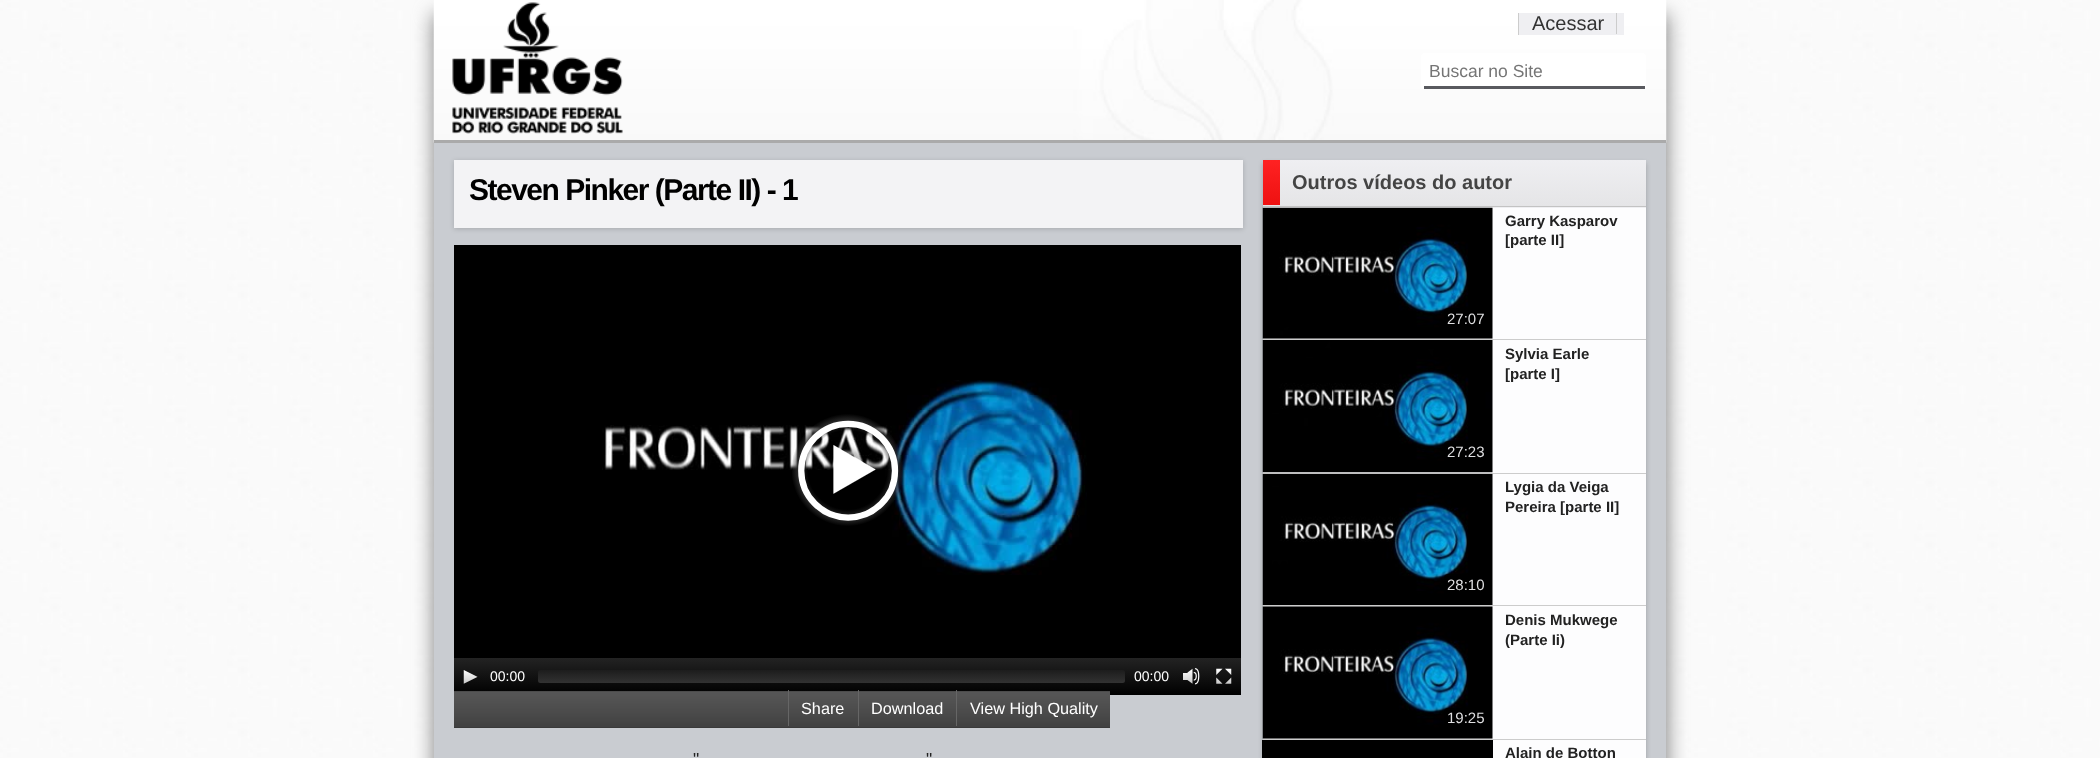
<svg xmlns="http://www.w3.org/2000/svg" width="2100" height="758">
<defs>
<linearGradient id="g1" gradientUnits="userSpaceOnUse" x1="848" y1="658" x2="848" y2="695"><stop offset="0" stop-color="#232323"/><stop offset="1" stop-color="#000"/></linearGradient>
<linearGradient id="g2" gradientUnits="userSpaceOnUse" x1="831" y1="670" x2="831" y2="683"><stop offset="0" stop-color="#1e1e1e" stop-opacity="0.8"/><stop offset="1" stop-color="#3c3c3c" stop-opacity="0.8"/></linearGradient>
<linearGradient id="g3" gradientUnits="userSpaceOnUse" x1="1454" y1="160" x2="1454" y2="206"><stop offset="0" stop-color="#efeff2"/><stop offset="1" stop-color="#e5e5e7"/></linearGradient>
<linearGradient id="g4" gradientUnits="userSpaceOnUse" x1="1454" y1="206" x2="1454" y2="253"><stop offset="0" stop-color="#efeff2"/><stop offset="1" stop-color="#e5e5e7"/></linearGradient>
<linearGradient id="g5" gradientUnits="userSpaceOnUse" x1="1271" y1="160" x2="1271" y2="205"><stop offset="0" stop-color="#f22"/><stop offset="1" stop-color="#e11"/></linearGradient>
</defs>
<rect width="100%" height="100%" fill="#fff"/>
<image x="0" y="0" width="2100" height="758" href="media/1.png"/>
<rect x="433" y="14" width="1235" height="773" fill="#888" filter="blur(9.5px)"/>
<image x="433" y="0" width="1234" height="143" href="media/2.png"/>
<rect x="434" y="140" width="1232" height="3" fill="#aaa"/>
<image x="452" y="2" width="171" height="132" href="media/3.png"/>
<rect x="1519" y="13" width="105" height="22" fill="#efeff2"/>
<rect x="1518" y="13" width="1" height="22" fill="#ccc"/>
<text x="1532" y="30" style="font-family:Arimo;font-size:20px;fill:#333">Acessar</text>
<rect x="1616" y="13" width="1" height="21" fill="#ccc"/>
<rect x="1421" y="53" width="225" height="36" rx="4" fill="#fff"/>
<rect x="1424" y="86" width="221" height="3" fill="#595a5f"/>
<text x="1429" y="77" style="font-family:Liberation Sans;font-size:17.5px;fill:#757575">Buscar no Site</text>
<rect x="434" y="143" width="1232" height="615" fill="#c9ccd1"/>
<rect x="454" y="161" width="789" height="68" fill="#0000002b" filter="blur(2.5px)"/>
<rect x="454" y="160" width="789" height="68" fill="#f3f3f5"/>
<text x="469" y="200" style="font-family:Liberation Sans;font-size:30px;font-weight:bold;letter-spacing:-1.5px;fill:#000">Steven Pinker (Parte II) - 1</text>
<rect x="454" y="245" width="787" height="413" fill="#000"/>
<image x="602" y="380" width="485" height="195" href="media/4.png"/>
<image x="792" y="414" width="111" height="112" href="media/5.png"/>
<rect x="454" y="658" width="787" height="37" fill="url(#g1)"/>
<image x="463" y="670" width="15" height="14" href="media/6.png"/>
<text x="490" y="681" style="font-family:Liberation Sans;font-size:14px;fill:#fff">00:00</text>
<rect x="538" y="670" width="587" height="13" rx="2.5" fill="url(#g2)"/>
<text x="1134" y="681" style="font-family:Liberation Sans;font-size:14px;fill:#fff">00:00</text>
<image x="1183" y="668" width="17" height="17" href="media/7.png"/>
<image x="1216" y="668" width="16" height="16" href="media/8.png"/>
<rect x="454" y="691" width="656" height="37" fill="#333"/>
<image x="454" y="691" width="656" height="37" href="media/9.png"/>
<text x="801" y="714" style="font-family:Arimo;font-size:16.25px;fill:#fff">Share</text>
<rect x="788" y="690" width="1" height="36" fill="#666"/>
<text x="871" y="714" style="font-family:Arimo;font-size:16.25px;fill:#fff">Download</text>
<rect x="858" y="690" width="1" height="36" fill="#666"/>
<text x="970" y="714" style="font-family:Arimo;font-size:16.25px;fill:#fff">View High Quality</text>
<rect x="956" y="690" width="1" height="36" fill="#666"/>
<text x="693" y="765" style="font-family:Arimo;font-size:17.5px;fill:#222">"</text>
<text x="926" y="765" style="font-family:Arimo;font-size:17.5px;fill:#222">"</text>
<rect x="1263" y="163" width="383" height="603" fill="#00000036" filter="blur(2.5px)"/>
<rect x="1263" y="160" width="383" height="46" fill="url(#g3)"/>
<rect x="1263" y="207" width="383" height="1" fill="url(#g4)"/>
<rect x="1263" y="206" width="383" height="1" fill="#c3c3c3"/>
<rect x="1263" y="160" width="17" height="45" fill="url(#g5)"/>
<text x="1292" y="189" style="font-family:Liberation Sans;font-size:20px;font-weight:bold;fill:#444">Outros vídeos do autor</text>
<rect x="1263" y="208" width="383" height="550" fill="#fdfdfe"/>
<rect x="1263" y="339" width="383" height="1" fill="#ccc"/>
<image x="1262" y="207" width="231" height="132" href="media/10.png"/>
<text x="1505" y="226" style="font-family:Liberation Sans;font-size:15px;font-weight:bold;fill:#222">Garry Kasparov</text>
<text x="1505" y="245" style="font-family:Liberation Sans;font-size:15px;font-weight:bold;fill:#222">[parte II]</text>
<rect x="1444" y="308" width="45" height="22" rx="4" fill="#000000b3"/>
<text x="1447" y="324" style="font-family:Arimo;font-size:15px;fill:#dfdfe1">27:07</text>
<rect x="1263" y="473" width="383" height="1" fill="#ccc"/>
<image x="1262" y="340" width="231" height="133" href="media/11.png"/>
<text x="1505" y="359" style="font-family:Liberation Sans;font-size:15px;font-weight:bold;fill:#222">Sylvia Earle</text>
<text x="1505" y="379" style="font-family:Liberation Sans;font-size:15px;font-weight:bold;fill:#222">[parte I]</text>
<rect x="1444" y="441" width="45" height="23" rx="4" fill="#000000b3"/>
<text x="1447" y="457" style="font-family:Arimo;font-size:15px;fill:#dfdfe1">27:23</text>
<rect x="1263" y="605" width="383" height="1" fill="#ccc"/>
<image x="1262" y="473" width="231" height="132" href="media/12.png"/>
<text x="1505" y="492" style="font-family:Liberation Sans;font-size:15px;font-weight:bold;fill:#222">Lygia da Veiga</text>
<text x="1505" y="512" style="font-family:Liberation Sans;font-size:15px;font-weight:bold;fill:#222">Pereira [parte II]</text>
<rect x="1444" y="574" width="45" height="22" rx="4" fill="#000000b3"/>
<text x="1447" y="590" style="font-family:Arimo;font-size:15px;fill:#dfdfe1">28:10</text>
<rect x="1263" y="739" width="383" height="1" fill="#ccc"/>
<image x="1262" y="606" width="231" height="133" href="media/13.png"/>
<text x="1505" y="625" style="font-family:Liberation Sans;font-size:15px;font-weight:bold;fill:#222">Denis Mukwege</text>
<text x="1505" y="645" style="font-family:Liberation Sans;font-size:15px;font-weight:bold;fill:#222">(Parte Ii)</text>
<rect x="1444" y="708" width="45" height="22" rx="4" fill="#000000b3"/>
<text x="1447" y="723" style="font-family:Arimo;font-size:15px;fill:#dfdfe1">19:25</text>
<rect x="1262" y="740" width="231" height="18" fill="#000"/>
<text x="1505" y="758" style="font-family:Liberation Sans;font-size:15px;font-weight:bold;fill:#222">Alain de Botton</text>
</svg>
